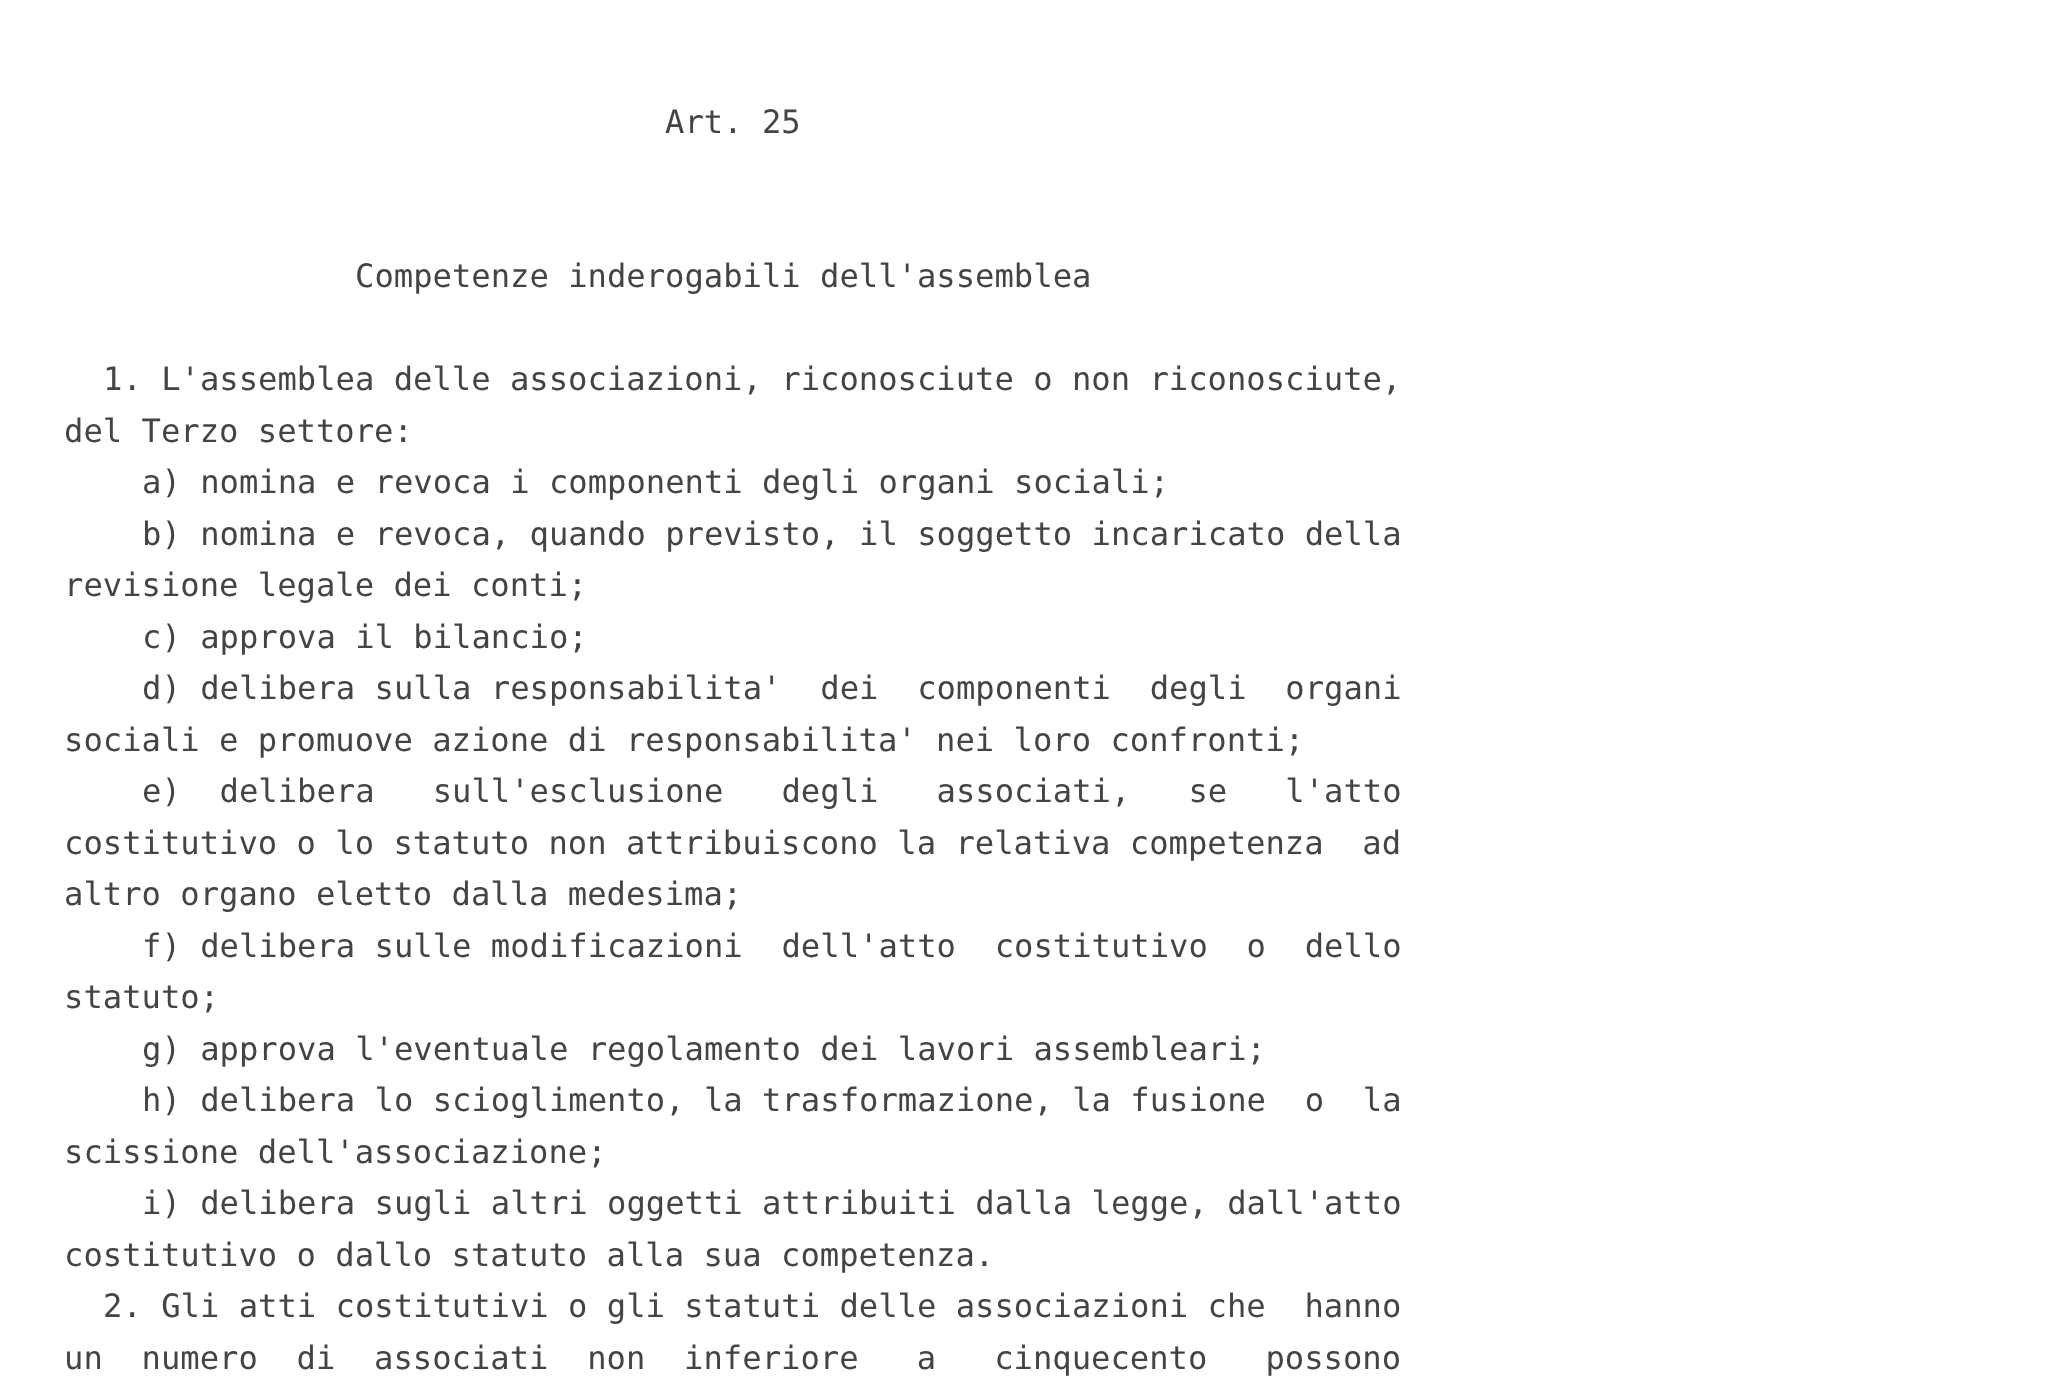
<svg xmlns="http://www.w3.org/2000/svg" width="2052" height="1387">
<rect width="100%" height="100%" fill="#fff"/>
<text x="665" y="133" style="font-family:DejaVu Sans Mono;font-size:32.2px;fill:#444">Art. 25</text>
<text x="355" y="287" style="font-family:DejaVu Sans Mono;font-size:32.2px;fill:#444">Competenze inderogabili dell'assemblea</text>
<text x="103" y="390" style="font-family:DejaVu Sans Mono;font-size:32.2px;fill:#444">1. L'assemblea delle associazioni, riconosciute o non riconosciute,</text>
<text x="64" y="442" style="font-family:DejaVu Sans Mono;font-size:32.2px;fill:#444">del Terzo settore:</text>
<text x="142" y="493" style="font-family:DejaVu Sans Mono;font-size:32.2px;fill:#444">a) nomina e revoca i componenti degli organi sociali;</text>
<text x="142" y="545" style="font-family:DejaVu Sans Mono;font-size:32.2px;fill:#444">b) nomina e revoca, quando previsto, il soggetto incaricato della</text>
<text x="64" y="596" style="font-family:DejaVu Sans Mono;font-size:32.2px;fill:#444">revisione legale dei conti;</text>
<text x="142" y="648" style="font-family:DejaVu Sans Mono;font-size:32.2px;fill:#444">c) approva il bilancio;</text>
<text x="142" y="699" style="font-family:DejaVu Sans Mono;font-size:32.2px;fill:#444" xml:space="preserve">d) delibera sulla responsabilita'  dei  componenti  degli  organi</text>
<text x="64" y="751" style="font-family:DejaVu Sans Mono;font-size:32.2px;fill:#444">sociali e promuove azione di responsabilita' nei loro confronti;</text>
<text x="142" y="802" style="font-family:DejaVu Sans Mono;font-size:32.2px;fill:#444" xml:space="preserve">e)  delibera   sull'esclusione   degli   associati,   se   l'atto</text>
<text x="64" y="854" style="font-family:DejaVu Sans Mono;font-size:32.2px;fill:#444" xml:space="preserve">costitutivo o lo statuto non attribuiscono la relativa competenza  ad</text>
<text x="64" y="905" style="font-family:DejaVu Sans Mono;font-size:32.2px;fill:#444">altro organo eletto dalla medesima;</text>
<text x="142" y="957" style="font-family:DejaVu Sans Mono;font-size:32.2px;fill:#444" xml:space="preserve">f) delibera sulle modificazioni  dell'atto  costitutivo  o  dello</text>
<text x="64" y="1008" style="font-family:DejaVu Sans Mono;font-size:32.2px;fill:#444">statuto;</text>
<text x="142" y="1060" style="font-family:DejaVu Sans Mono;font-size:32.2px;fill:#444">g) approva l'eventuale regolamento dei lavori assembleari;</text>
<text x="142" y="1111" style="font-family:DejaVu Sans Mono;font-size:32.2px;fill:#444" xml:space="preserve">h) delibera lo scioglimento, la trasformazione, la fusione  o  la</text>
<text x="64" y="1163" style="font-family:DejaVu Sans Mono;font-size:32.2px;fill:#444">scissione dell'associazione;</text>
<text x="142" y="1214" style="font-family:DejaVu Sans Mono;font-size:32.2px;fill:#444">i) delibera sugli altri oggetti attribuiti dalla legge, dall'atto</text>
<text x="64" y="1266" style="font-family:DejaVu Sans Mono;font-size:32.2px;fill:#444">costitutivo o dallo statuto alla sua competenza.</text>
<text x="103" y="1317" style="font-family:DejaVu Sans Mono;font-size:32.2px;fill:#444" xml:space="preserve">2. Gli atti costitutivi o gli statuti delle associazioni che  hanno</text>
<text x="64" y="1369" style="font-family:DejaVu Sans Mono;font-size:32.2px;fill:#444" xml:space="preserve">un  numero  di  associati  non  inferiore   a   cinquecento   possono</text>
</svg>
